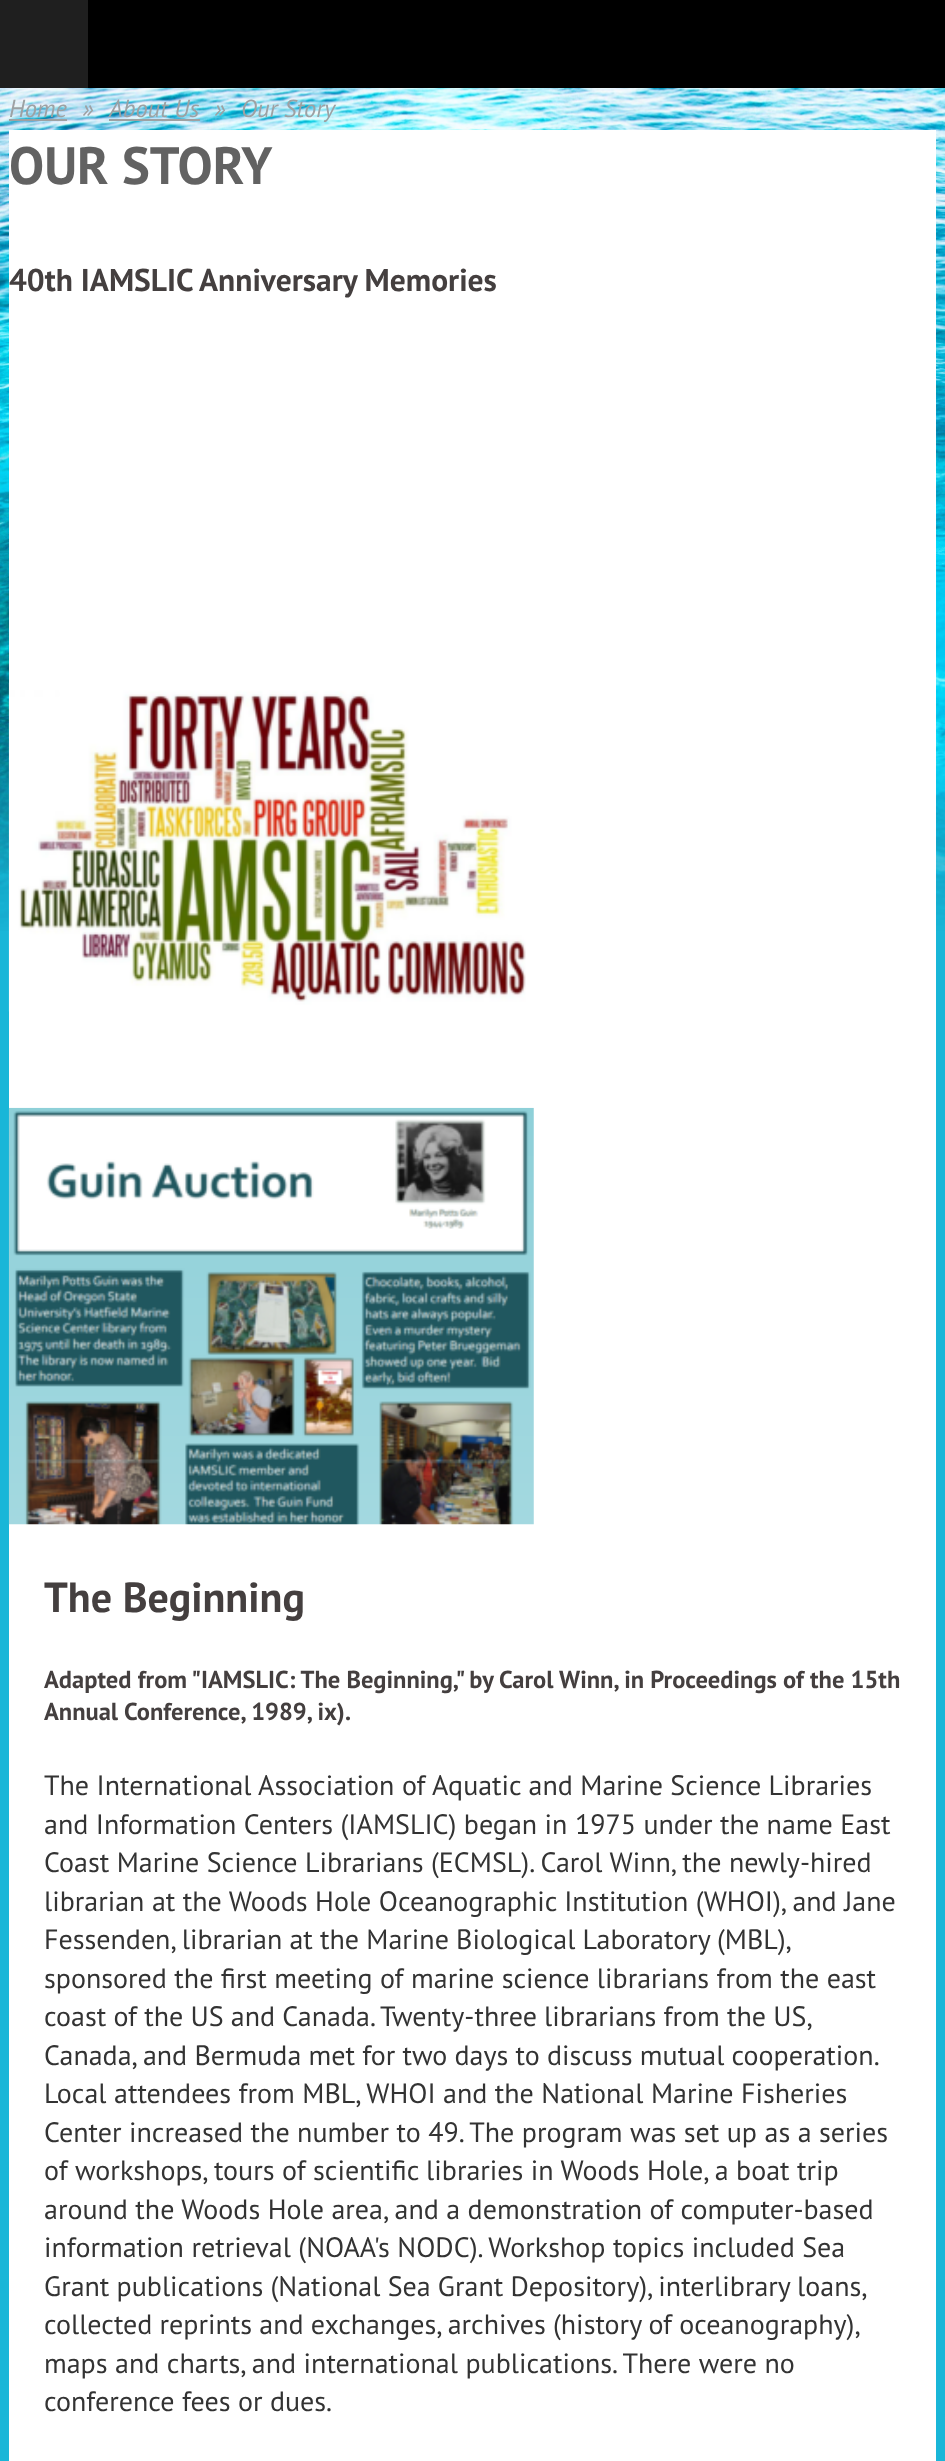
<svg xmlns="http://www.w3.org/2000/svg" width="945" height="2461">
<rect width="100%" height="100%" fill="#19b6d8"/>
<image x="0" y="88" width="945" height="843" href="media/1.png"/>
<rect x="88" width="857" height="88" fill="#000"/>
<rect width="88" height="88" fill="#1f1f1f"/>
<text x="9" y="117" style="font-family:PT Sans;font-size:24.5px;font-style:italic;fill:#9da1a3">Home</text>
<rect x="9" y="119" width="58" height="2" fill="#9da1a3"/>
<text x="82" y="117" style="font-family:PT Sans;font-size:24.5px;font-style:italic;fill:#9da1a3">»</text>
<text x="109" y="117" style="font-family:PT Sans;font-size:24.5px;font-style:italic;fill:#9da1a3">About Us</text>
<rect x="109" y="119" width="91" height="2" fill="#9da1a3"/>
<text x="214" y="117" style="font-family:PT Sans;font-size:24.5px;font-style:italic;fill:#9da1a3">»</text>
<text x="241" y="117" style="font-family:PT Sans;font-size:24.5px;font-style:italic;fill:#9da1a3">Our Story</text>
<rect x="9" y="130" width="927" height="2331" fill="#fff"/>
<text x="9" y="184" style="font-family:PT Sans;font-size:52.5px;font-weight:bold;fill:#626262">OUR STORY</text>
<text x="9" y="291" style="font-family:PT Sans;font-size:31.5px;font-weight:bold;fill:#443f3f">40th IAMSLIC Anniversary Memories</text>
<image x="8" y="683" width="518" height="329" href="media/2.png"/>
<image x="8" y="1107" width="526" height="418" href="media/3.png"/>
<text x="44" y="1612" style="font-family:PT Sans;font-size:42px;font-weight:bold;fill:#443f3f">The Beginning</text>
<text x="44" y="1688" style="font-family:PT Sans;font-size:24.5px;font-weight:bold;fill:#443f3f">Adapted from "IAMSLIC: The Beginning," by Carol Winn, in Proceedings of the 15th</text>
<text x="44" y="1720" style="font-family:PT Sans;font-size:24.5px;font-weight:bold;fill:#443f3f">Annual Conference, 1989, ix).</text>
<text x="44" y="1795" style="font-family:PT Sans;font-size:28px;fill:#333">The International Association of Aquatic and Marine Science Libraries</text>
<text x="44" y="1834" style="font-family:PT Sans;font-size:28px;fill:#333">and Information Centers (IAMSLIC) began in 1975 under the name East</text>
<text x="44" y="1872" style="font-family:PT Sans;font-size:28px;fill:#333">Coast Marine Science Librarians (ECMSL). Carol Winn, the newly-hired</text>
<text x="44" y="1911" style="font-family:PT Sans;font-size:28px;fill:#333">librarian at the Woods Hole Oceanographic Institution (WHOI), and Jane</text>
<text x="44" y="1949" word-spacing="-0.25" style="font-family:PT Sans;font-size:28px;fill:#333">Fessenden, librarian at the Marine Biological Laboratory (MBL),</text>
<text x="44" y="1988" style="font-family:PT Sans;font-size:28px;fill:#333">sponsored the first meeting of marine science librarians from the east</text>
<text x="44" y="2026" word-spacing="-0.25" style="font-family:PT Sans;font-size:28px;fill:#333">coast of the US and Canada. Twenty-three librarians from the US,</text>
<text x="44" y="2065" word-spacing="-0.25" style="font-family:PT Sans;font-size:28px;fill:#333">Canada, and Bermuda met for two days to discuss mutual cooperation.</text>
<text x="44" y="2103" style="font-family:PT Sans;font-size:28px;fill:#333">Local attendees from MBL, WHOI and the National Marine Fisheries</text>
<text x="44" y="2142" style="font-family:PT Sans;font-size:28px;fill:#333">Center increased the number to 49. The program was set up as a series</text>
<text x="44" y="2180" style="font-family:PT Sans;font-size:28px;fill:#333">of workshops, tours of scientific libraries in Woods Hole, a boat trip</text>
<text x="44" y="2219" style="font-family:PT Sans;font-size:28px;fill:#333">around the Woods Hole area, and a demonstration of computer-based</text>
<text x="44" y="2257" style="font-family:PT Sans;font-size:28px;fill:#333">information retrieval (NOAA's NODC). Workshop topics included Sea</text>
<text x="44" y="2296" word-spacing="-0.25" style="font-family:PT Sans;font-size:28px;fill:#333">Grant publications (National Sea Grant Depository), interlibrary loans,</text>
<text x="44" y="2334" word-spacing="-0.25" style="font-family:PT Sans;font-size:28px;fill:#333">collected reprints and exchanges, archives (history of oceanography),</text>
<text x="44" y="2373" style="font-family:PT Sans;font-size:28px;fill:#333">maps and charts, and international publications. There were no</text>
<text x="44" y="2411" style="font-family:PT Sans;font-size:28px;fill:#333">conference fees or dues.</text>
</svg>
